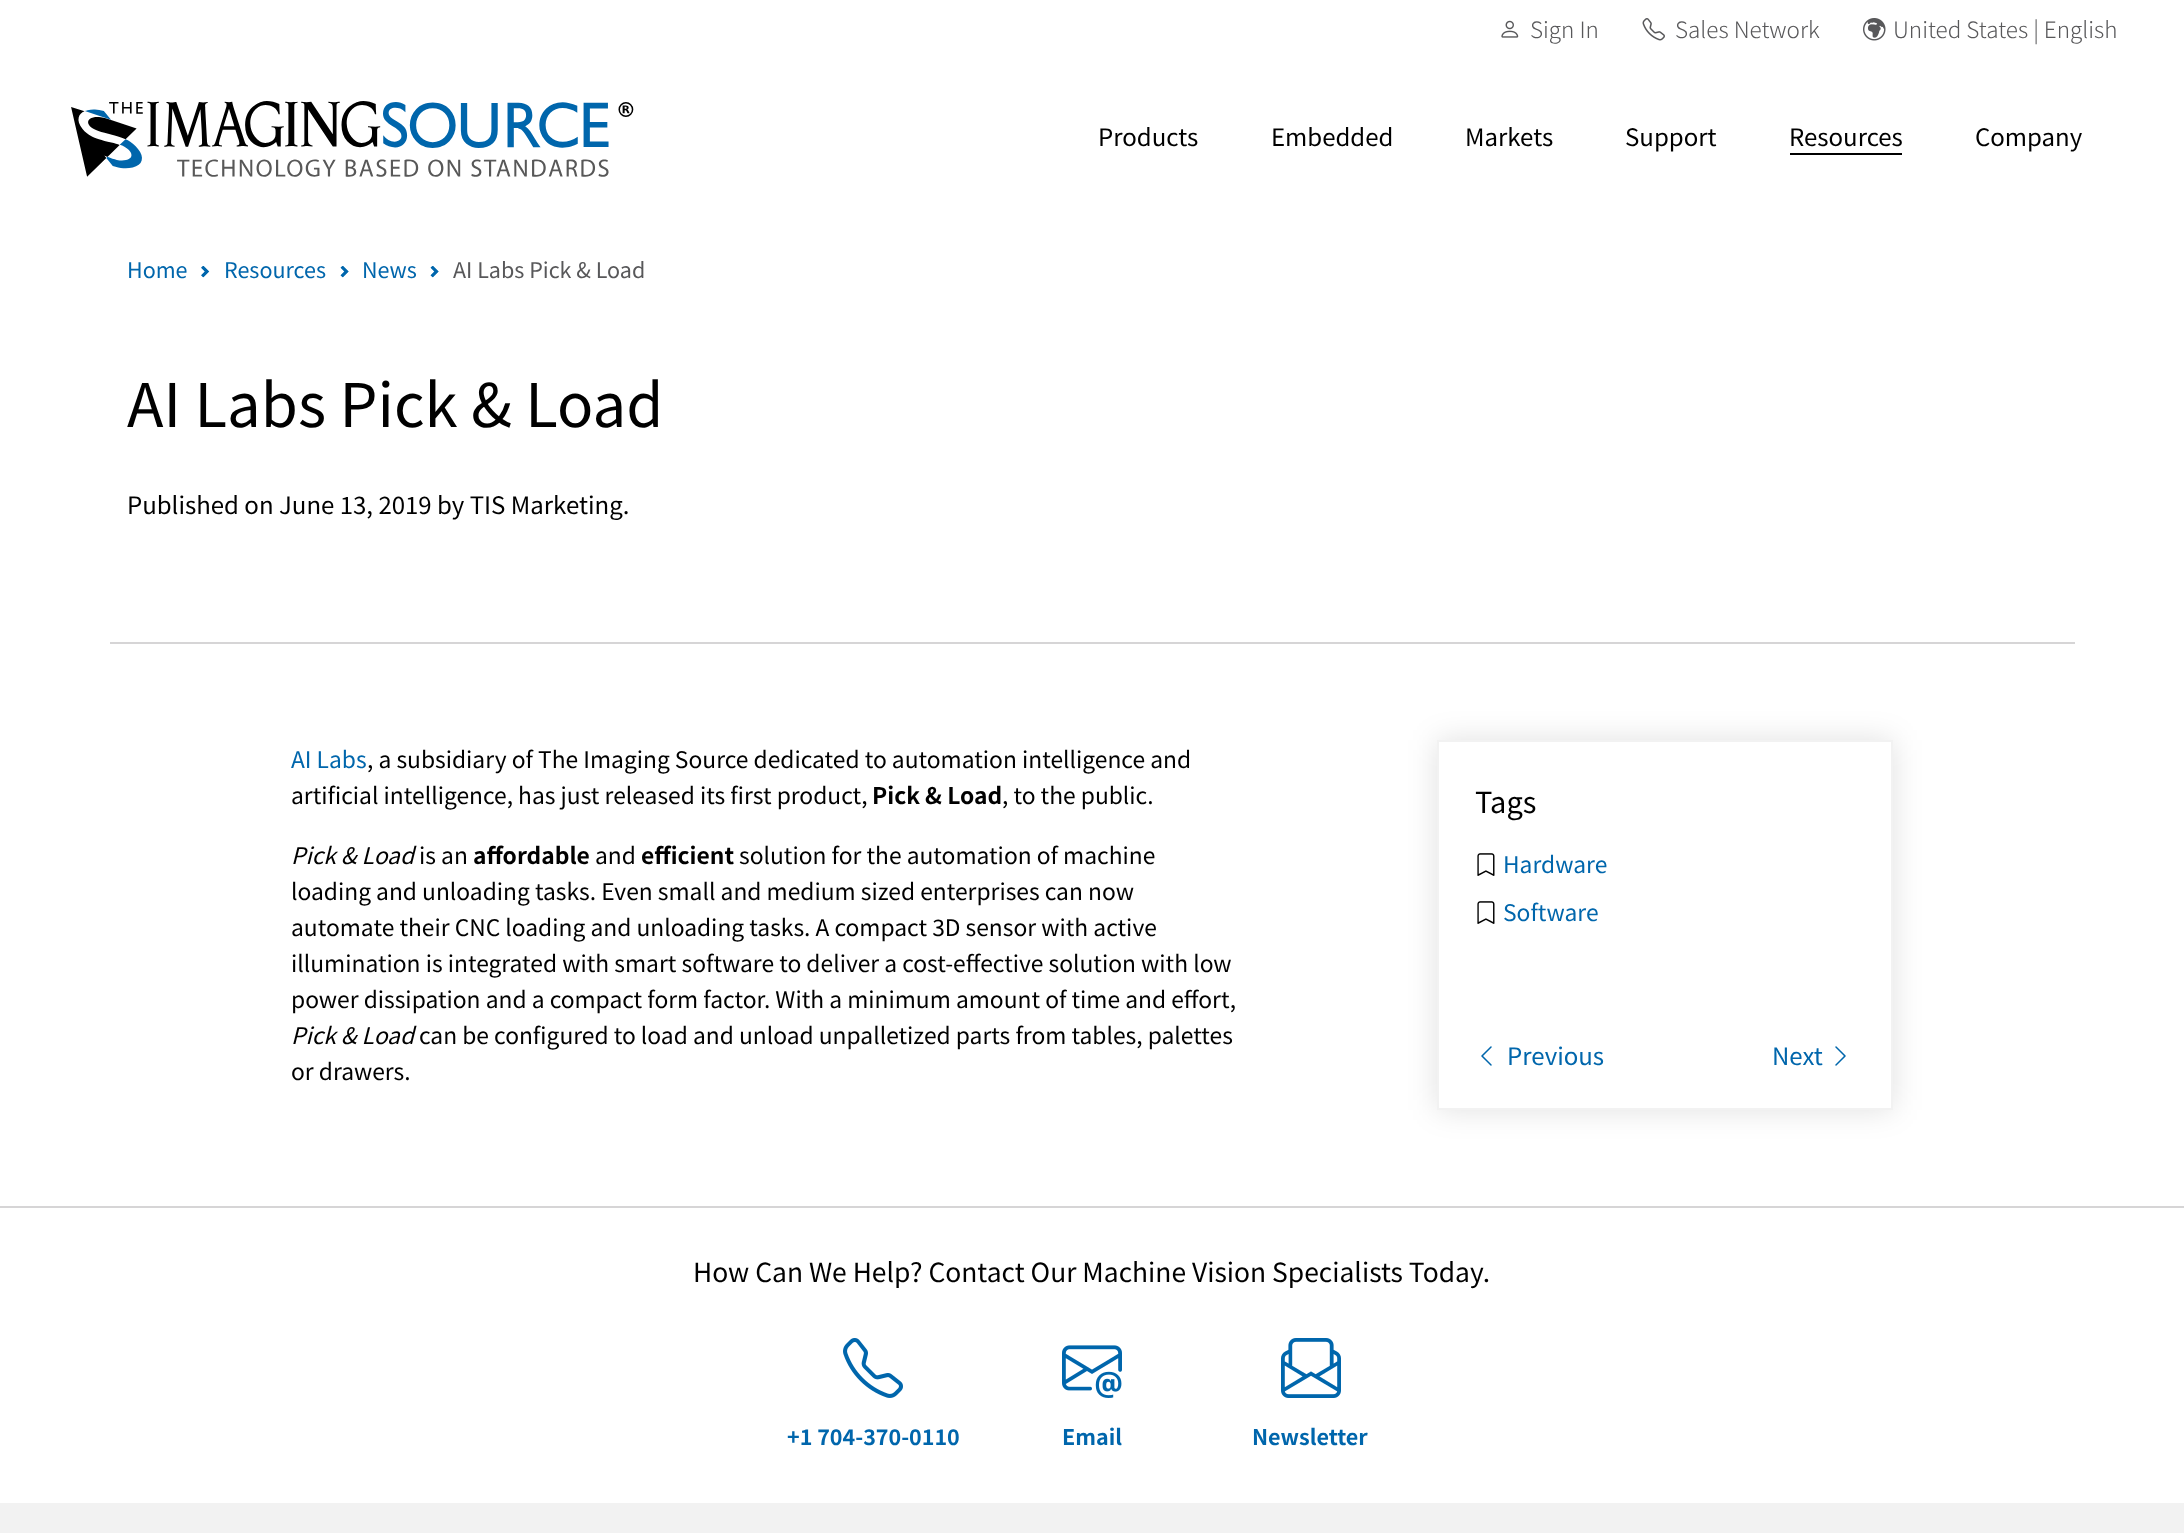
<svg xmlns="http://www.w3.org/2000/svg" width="2184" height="1533">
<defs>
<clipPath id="clip1"><path d="M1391 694h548v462h-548zm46 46h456v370h-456z" clip-rule="evenodd"/></clipPath>
</defs>
<rect width="100%" height="100%" fill="#fff"/>
<image x="1501" y="20" width="18" height="18" href="media/1.png"/>
<text x="1530" y="38" style="font-family:Noto Sans SC;font-size:22.5px;font-weight:300;fill:#58585a">Sign In</text>
<image x="1642" y="18" width="23" height="23" href="media/2.png"/>
<text x="1675" y="38" style="font-family:Noto Sans SC;font-size:22.5px;font-weight:300;fill:#58585a">Sales Network</text>
<image x="1863" y="18" width="23" height="23" href="media/3.png"/>
<text x="1893" y="38" style="font-family:Noto Sans SC;font-size:22.5px;font-weight:300;fill:#58585a">United States | English</text>
<image x="71" y="101" width="563" height="76" href="media/4.png"/>
<text x="1098" y="146" style="font-family:Noto Sans SC;font-size:24px;fill:#000">Products</text>
<text x="1271" y="146" style="font-family:Noto Sans SC;font-size:24px;fill:#000">Embedded</text>
<text x="1465" y="146" style="font-family:Noto Sans SC;font-size:24px;fill:#000">Markets</text>
<text x="1625" y="146" style="font-family:Noto Sans SC;font-size:24px;fill:#000">Support</text>
<text x="1789" y="146" style="font-family:Noto Sans SC;font-size:24px;fill:#000">Resources</text>
<rect x="1790" y="153" width="112" height="2" fill="#000"/>
<text x="1975" y="146" style="font-family:Noto Sans SC;font-size:24px;fill:#000">Company</text>
<text x="127" y="278" style="font-family:Noto Sans SC;font-size:21.5px;fill:#0066ac">Home</text>
<image x="201" y="266" width="9" height="12" href="media/5.png"/>
<text x="224" y="278" style="font-family:Noto Sans SC;font-size:21.5px;fill:#0066ac">Resources</text>
<image x="340" y="266" width="9" height="12" href="media/6.png"/>
<text x="362" y="278" style="font-family:Noto Sans SC;font-size:21.5px;fill:#0066ac">News</text>
<image x="430" y="266" width="9" height="12" href="media/6.png"/>
<text x="453" y="278" style="font-family:Noto Sans SC;font-size:21.5px;fill:#58585a">AI Labs Pick &amp; Load</text>
<rect x="110" y="642" width="1965" height="2" fill="#d6d5d6"/>
<text x="127" y="427" style="font-family:Noto Sans SC;font-size:60px;fill:#000">AI Labs Pick &amp; Load</text>
<text x="127" y="514" style="font-family:Noto Sans SC;font-size:24px;fill:#000">Published on June 13, 2019 by TIS Marketing.</text>
<text x="291" y="768" style="font-family:Noto Sans SC;font-size:22.8px;fill:#0066ac">AI Labs</text>
<text x="367" y="768" style="font-family:Noto Sans SC;font-size:22.8px;fill:#000">, a subsidiary of The Imaging Source dedicated to automation intelligence and</text>
<text x="291" y="804" style="font-family:Noto Sans SC;font-size:22.8px;fill:#000">artificial intelligence, has just released its first product,</text>
<text x="872" y="804" style="font-family:Noto Sans SC;font-size:22.8px;font-weight:bold;fill:#000">Pick &amp; Load</text>
<text x="1002" y="804" style="font-family:Noto Sans SC;font-size:22.8px;fill:#000">, to the public.</text>
<text x="291" y="864" style="font-family:Noto Sans SC;font-size:22.8px;font-style:italic;fill:#000">Pick &amp; Load</text>
<text x="419" y="864" style="font-family:Noto Sans SC;font-size:22.8px;fill:#000">is an</text>
<text x="473" y="864" style="font-family:Noto Sans SC;font-size:22.8px;font-weight:bold;fill:#000">affordable</text>
<text x="595" y="864" style="font-family:Noto Sans SC;font-size:22.8px;fill:#000">and</text>
<text x="641" y="864" style="font-family:Noto Sans SC;font-size:22.8px;font-weight:bold;fill:#000">efficient</text>
<text x="739" y="864" style="font-family:Noto Sans SC;font-size:22.8px;fill:#000">solution for the automation of machine</text>
<text x="291" y="900" style="font-family:Noto Sans SC;font-size:22.8px;fill:#000">loading and unloading tasks. Even small and medium sized enterprises can now</text>
<text x="291" y="936" style="font-family:Noto Sans SC;font-size:22.8px;fill:#000">automate their CNC loading and unloading tasks. A compact 3D sensor with active</text>
<text x="291" y="972" style="font-family:Noto Sans SC;font-size:22.8px;fill:#000">illumination is integrated with smart software to deliver a cost-effective solution with low</text>
<text x="291" y="1008" style="font-family:Noto Sans SC;font-size:22.8px;fill:#000">power dissipation and a compact form factor. With a minimum amount of time and effort,</text>
<text x="291" y="1044" style="font-family:Noto Sans SC;font-size:22.8px;font-style:italic;fill:#000">Pick &amp; Load</text>
<text x="419" y="1044" style="font-family:Noto Sans SC;font-size:22.8px;fill:#000">can be configured to load and unload unpalletized parts from tables, palettes</text>
<text x="291" y="1080" style="font-family:Noto Sans SC;font-size:22.8px;fill:#000">or drawers.</text>
<g clip-path="url(#clip1)">
<rect x="1437" y="740" width="456" height="370" fill="#0000001f" filter="blur(15px)"/>
</g>
<rect x="1438" y="741" width="454" height="368" fill="none" stroke="#f2f2f2" stroke-width="2"/>
<text x="1475" y="813" style="font-family:Noto Sans SC;font-size:29px;fill:#000">Tags</text>
<image x="1477" y="853" width="18" height="23" href="media/7.png"/>
<text x="1503" y="873" style="font-family:Noto Sans SC;font-size:22.8px;fill:#0066ac">Hardware</text>
<image x="1477" y="901" width="18" height="23" href="media/7.png"/>
<text x="1503" y="921" style="font-family:Noto Sans SC;font-size:22.8px;fill:#0066ac">Software</text>
<image x="1481" y="1046" width="11" height="20" href="media/8.png"/>
<text x="1507" y="1065" style="font-family:Noto Sans SC;font-size:24px;fill:#0066ac">Previous</text>
<text x="1772" y="1065" style="font-family:Noto Sans SC;font-size:24px;fill:#0066ac">Next</text>
<image x="1835" y="1046" width="11" height="20" href="media/9.png"/>
<rect y="1206" width="2184" height="2" fill="#d6d5d6"/>
<text x="693" y="1282" style="font-family:Noto Sans SC;font-size:26.4px;fill:#000">How Can We Help? Contact Our Machine Vision Specialists Today.</text>
<image x="843" y="1338" width="60" height="60" href="media/10.png"/>
<text x="787" y="1445" style="font-family:Noto Sans SC;font-size:21.5px;font-weight:bold;fill:#0066ac">+1 704-370-0110</text>
<image x="1062" y="1345" width="60" height="53" href="media/11.png"/>
<text x="1062" y="1445" style="font-family:Noto Sans SC;font-size:21.5px;font-weight:bold;fill:#0066ac">Email</text>
<image x="1281" y="1338" width="60" height="60" href="media/12.png"/>
<text x="1252" y="1445" style="font-family:Noto Sans SC;font-size:21.5px;font-weight:bold;fill:#0066ac">Newsletter</text>
<rect y="1503" width="2184" height="30" fill="#f2f2f2"/>
</svg>
